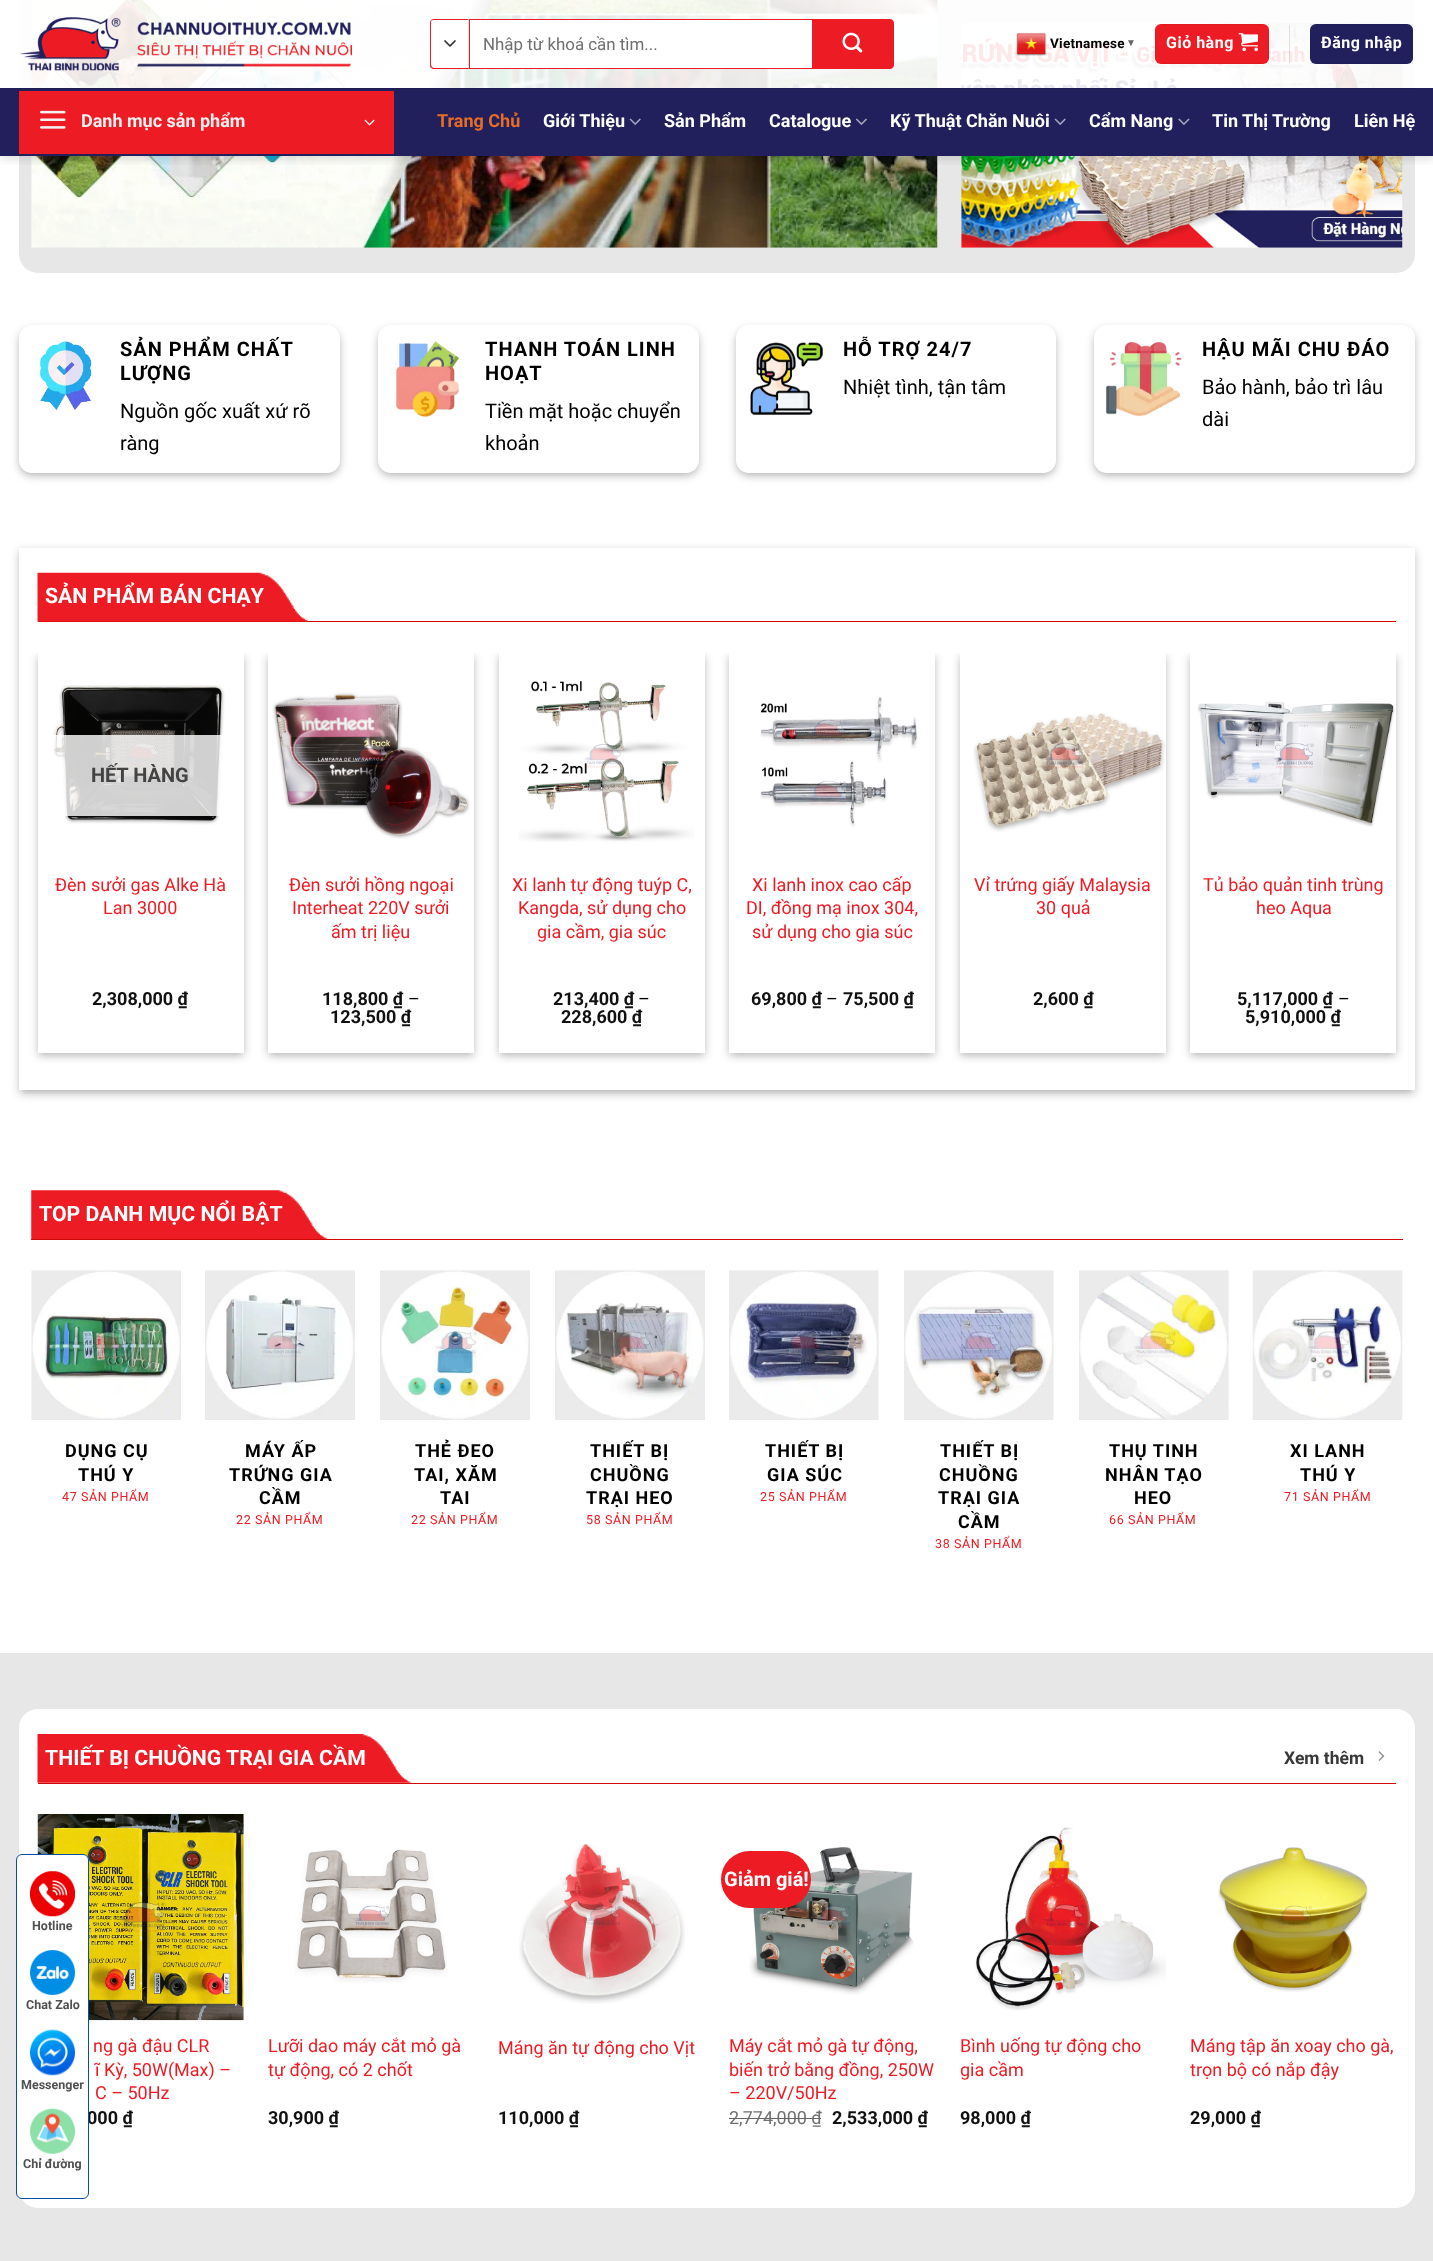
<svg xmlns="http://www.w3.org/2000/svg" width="1433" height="2261">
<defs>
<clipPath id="clip1"><rect x="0" y="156" width="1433" height="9"/></clipPath>
<clipPath id="clip2"><path d="M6 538h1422v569h-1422zm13 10h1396v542h-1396z" clip-rule="evenodd"/></clipPath>
<clipPath id="clip3"><rect x="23" y="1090" width="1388" height="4"/></clipPath>
<clipPath id="clip4"><rect x="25" y="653" width="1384" height="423"/></clipPath>
</defs>
<rect width="100%" height="100%" fill="#fff"/>
<rect x="19" y="-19" width="1396" height="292" rx="19" fill="#e8e7e7"/>
<image x="31" y="0" width="907" height="248" href="media/10.png"/>
<image x="961" y="22" width="442" height="226" href="media/11.png"/>
<g clip-path="url(#clip1)">
<rect x="1" y="1" width="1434" height="157" fill="#00000026" filter="blur(6px)"/>
</g>
<rect x="19" width="1396" height="88" fill="#ffffffe6"/>
<image x="20" y="17" width="332" height="54" href="media/1.png"/>
<path d="M434 19h35v50h-35c-2 0-4-2-4-4v-42c0-2 2-4 4-4z" fill="#fff"/>
<path d="M445 41l5 5l5-5" fill="none" stroke="#333" stroke-width="1.7" stroke-linecap="round" stroke-linejoin="round"/>
<path d="M434 19c-1 0-2 .5-3 1l1 .5c.5-.5 1-.5 2-.5h33.5l1-1z" fill="#ed1c24"/>
<path d="M469 19l-1 1v48l1 1z" fill="#eaeaea"/>
<path d="M469 69h-36.5l-1.5-1.5l1-.5l1.5 1h34.5z" fill="#ed1c24"/>
<path d="M430 22v43c0 1 0 2 1 3l1-1l-1-2v-44h1l-1-1z" fill="#ed1c24"/>
<rect x="469.5" y="19.5" width="343" height="49" fill="#fff" stroke="#ed1c24"/>
<text x="483" y="50" style="font-family:Roboto;font-size:16.9px;fill:#707070">Nhập từ khoá cần tìm...</text>
<path d="M815 21h75c1 0 2 1 2 2v42c0 1-1 2-2 2h-75z" fill="#ed1c24" stroke="#ed1c24" stroke-width="4"/>
<image x="842" y="32" width="21" height="21" href="media/2.png"/>
<image x="1016" y="32" width="31" height="24" href="media/3.png"/>
<text x="1050" y="48" style="font-family:Roboto;font-size:13.5px;font-weight:bold;letter-spacing:0.25px;fill:#000">Vietnamese</text>
<text x="1126" y="46" style="font-family:Liberation Sans;font-size:10px;font-weight:bold;letter-spacing:0.25px;fill:#666">▼</text>
<rect x="1155" y="24" width="114" height="40" rx="6" fill="#ed1c24"/>
<rect x="1155.5" y="24.5" width="113" height="39" fill="none" stroke="#0000000d"/>
<text x="1166" y="48" style="font-family:Roboto;font-size:16px;font-weight:bold;letter-spacing:0.5px;fill:#fff">Giỏ hàng</text>
<image x="1238" y="33" width="20" height="19" href="media/4.png"/>
<rect x="1289" y="25" width="1" height="38" fill="#0000001a"/>
<rect x="1310" y="24" width="103" height="40" rx="6" fill="#21205c"/>
<rect x="1310.5" y="24.5" width="102" height="39" fill="none" stroke="#0000000d"/>
<text x="1321" y="48" style="font-family:Roboto;font-size:16px;font-weight:bold;letter-spacing:0.5px;fill:#fff">Đăng nhập</text>
<rect y="88" width="1433" height="68" fill="#21205c"/>
<rect x="19" y="88" width="1396" height="1" fill="#1e1d53"/>
<rect x="19" y="91" width="375" height="63" fill="#ed1c24"/>
<image x="40" y="110" width="26" height="19" href="media/5.png"/>
<text x="81" y="127" style="font-family:Roboto;font-size:18px;font-weight:bold;fill:#f1f1f1">Danh mục sản phẩm</text>
<image x="364" y="119" width="11" height="7" href="media/6.png"/>
<text x="437" y="127" style="font-family:Roboto;font-size:18px;font-weight:bold;fill:#e76d27">Trang Chủ</text>
<text x="543" y="127" style="font-family:Roboto;font-size:18px;font-weight:bold;fill:#fff">Giới Thiệu</text>
<image x="629" y="118" width="12" height="7" href="media/7.png"/>
<text x="664" y="127" style="font-family:Roboto;font-size:18px;font-weight:bold;fill:#fff">Sản Phẩm</text>
<text x="769" y="127" style="font-family:Roboto;font-size:18px;font-weight:bold;fill:#fff">Catalogue</text>
<image x="855" y="118" width="12" height="7" href="media/8.png"/>
<text x="890" y="127" style="font-family:Roboto;font-size:18px;font-weight:bold;fill:#fff">Kỹ Thuật Chăn Nuôi</text>
<image x="1054" y="118" width="12" height="7" href="media/7.png"/>
<text x="1089" y="127" style="font-family:Roboto;font-size:18px;font-weight:bold;fill:#fff">Cẩm Nang</text>
<image x="1178" y="118" width="12" height="7" href="media/9.png"/>
<text x="1212" y="127" style="font-family:Roboto;font-size:18px;font-weight:bold;fill:#fff">Tin Thị Trường</text>
<text x="1354" y="127" style="font-family:Roboto;font-size:18px;font-weight:bold;fill:#fff">Liên Hệ</text>
<rect x="19" y="329" width="321" height="147" rx="13" fill="#0000003b" filter="blur(4px)"/>
<rect x="24" y="334" width="311" height="137" rx="8" fill="#00000029" filter="blur(4px)"/>
<rect x="19" y="325" width="321" height="148" rx="13" fill="#fff"/>
<image x="40" y="341" width="52" height="69" href="media/12.png"/>
<text x="120" y="356" style="font-family:Roboto;font-size:20px;font-weight:bold;letter-spacing:1px;fill:#000">SẢN PHẨM CHẤT</text>
<text x="120" y="380" style="font-family:Roboto;font-size:20px;font-weight:bold;letter-spacing:1px;fill:#000">LƯỢNG</text>
<text x="120" y="418" style="font-family:Roboto;font-size:20px;fill:#000">Nguồn gốc xuất xứ rõ</text>
<text x="120" y="450" style="font-family:Roboto;font-size:20px;fill:#000">ràng</text>
<rect x="378" y="329" width="321" height="147" rx="13" fill="#0000003b" filter="blur(4px)"/>
<rect x="383" y="334" width="311" height="137" rx="8" fill="#00000029" filter="blur(4px)"/>
<rect x="378" y="325" width="321" height="148" rx="13" fill="#fff"/>
<image x="396" y="341" width="63" height="76" href="media/13.png"/>
<text x="485" y="356" style="font-family:Roboto;font-size:20px;font-weight:bold;letter-spacing:1px;fill:#000">THANH TOÁN LINH</text>
<text x="485" y="380" style="font-family:Roboto;font-size:20px;font-weight:bold;letter-spacing:1px;fill:#000">HOẠT</text>
<text x="485" y="418" style="font-family:Roboto;font-size:20px;fill:#000">Tiền mặt hoặc chuyển</text>
<text x="485" y="450" style="font-family:Roboto;font-size:20px;fill:#000">khoản</text>
<rect x="736" y="329" width="320" height="147" rx="13" fill="#0000003b" filter="blur(4px)"/>
<rect x="741" y="334" width="310" height="137" rx="8" fill="#00000029" filter="blur(4px)"/>
<rect x="736" y="325" width="320" height="148" rx="13" fill="#fff"/>
<image x="750" y="342" width="73" height="73" href="media/14.png"/>
<text x="843" y="356" style="font-family:Roboto;font-size:20px;font-weight:bold;letter-spacing:1px;fill:#000">HỖ TRỢ 24/7</text>
<text x="843" y="394" style="font-family:Roboto;font-size:20px;fill:#000">Nhiệt tình, tận tâm</text>
<rect x="1094" y="329" width="321" height="147" rx="13" fill="#0000003b" filter="blur(4px)"/>
<rect x="1099" y="334" width="311" height="137" rx="8" fill="#00000029" filter="blur(4px)"/>
<rect x="1094" y="325" width="321" height="148" rx="13" fill="#fff"/>
<image x="1106" y="342" width="76" height="75" href="media/15.png"/>
<text x="1202" y="356" style="font-family:Roboto;font-size:20px;font-weight:bold;letter-spacing:1px;fill:#000">HẬU MÃI CHU ĐÁO</text>
<text x="1202" y="394" style="font-family:Roboto;font-size:20px;fill:#000">Bảo hành, bảo trì lâu</text>
<text x="1202" y="426" style="font-family:Roboto;font-size:20px;fill:#000">dài</text>
<g clip-path="url(#clip2)">
<rect x="19" y="551" width="1396" height="543" fill="#0000003b" filter="blur(4px)"/>
</g>
<g clip-path="url(#clip3)">
<rect x="24" y="556" width="1386" height="533" fill="#00000029" filter="blur(4px)"/>
</g>
<rect x="38" y="621" width="1358" height="1" fill="#ce0707"/>
<image x="37" y="572" width="273" height="50" href="media/16.png"/>
<text x="45" y="603" style="font-family:Roboto;font-size:21.25px;font-weight:bold;fill:#fff">SẢN PHẨM BÁN CHẠY</text>
<g clip-path="url(#clip4)">
<rect x="38" y="656" width="206" height="400" fill="#0000003b" filter="blur(4px)"/>
</g>
<rect x="43" y="661" width="196" height="390" fill="#00000029" filter="blur(4px)"/>
<rect x="38" y="653" width="206" height="400" fill="#fff"/>
<image x="51" y="685" width="174" height="140" href="media/17.png"/>
<rect x="51" y="735" width="172" height="81" fill="#ffffffcf"/>
<text x="91" y="782" style="font-family:Roboto;font-size:20px;font-weight:bold;fill:#434343">HẾT HÀNG</text>
<text x="55" y="891" style="font-family:Roboto;font-size:18px;fill:#ed1c24">Đèn sưởi gas Alke Hà</text>
<text x="103" y="914" style="font-family:Roboto;font-size:18px;fill:#ed1c24">Lan 3000</text>
<text x="92" y="1005" style="font-family:Roboto;font-size:18px;font-weight:bold;fill:#111">2,308,000 ₫</text>
<g clip-path="url(#clip4)">
<rect x="268" y="656" width="206" height="400" fill="#0000003b" filter="blur(4px)"/>
</g>
<rect x="273" y="661" width="196" height="390" fill="#00000029" filter="blur(4px)"/>
<rect x="268" y="653" width="206" height="400" fill="#fff"/>
<image x="272" y="692" width="198" height="147" href="media/18.png"/>
<text x="289" y="891" style="font-family:Roboto;font-size:18px;fill:#ed1c24">Đèn sưởi hồng ngoại</text>
<text x="292" y="914" style="font-family:Roboto;font-size:18px;fill:#ed1c24">Interheat 220V sưởi</text>
<text x="331" y="938" style="font-family:Roboto;font-size:18px;fill:#ed1c24">ấm trị liệu</text>
<text x="322" y="1005" style="font-family:Roboto;font-size:18px;font-weight:bold;fill:#111">118,800 ₫</text>
<text x="408" y="1005" style="font-family:Roboto;font-size:18px;fill:#000">–</text>
<text x="330" y="1023" style="font-family:Roboto;font-size:18px;font-weight:bold;fill:#111">123,500 ₫</text>
<g clip-path="url(#clip4)">
<rect x="499" y="656" width="206" height="400" fill="#0000003b" filter="blur(4px)"/>
</g>
<rect x="504" y="661" width="196" height="390" fill="#00000029" filter="blur(4px)"/>
<rect x="499" y="653" width="206" height="400" fill="#fff"/>
<image x="518" y="681" width="176" height="161" href="media/19.png"/>
<text x="512" y="891" style="font-family:Roboto;font-size:18px;fill:#ed1c24">Xi lanh tự động tuýp C,</text>
<text x="518" y="914" style="font-family:Roboto;font-size:18px;fill:#ed1c24">Kangda, sử dụng cho</text>
<text x="537" y="938" style="font-family:Roboto;font-size:18px;fill:#ed1c24">gia cầm, gia súc</text>
<text x="553" y="1005" style="font-family:Roboto;font-size:18px;font-weight:bold;fill:#111">213,400 ₫</text>
<text x="638" y="1005" style="font-family:Roboto;font-size:18px;fill:#000">–</text>
<text x="561" y="1023" style="font-family:Roboto;font-size:18px;font-weight:bold;fill:#111">228,600 ₫</text>
<g clip-path="url(#clip4)">
<rect x="729" y="656" width="206" height="400" fill="#0000003b" filter="blur(4px)"/>
</g>
<rect x="734" y="661" width="196" height="390" fill="#00000029" filter="blur(4px)"/>
<rect x="729" y="653" width="206" height="400" fill="#fff"/>
<image x="760" y="697" width="158" height="130" href="media/20.png"/>
<text x="752" y="891" style="font-family:Roboto;font-size:18px;fill:#ed1c24">Xi lanh inox cao cấp</text>
<text x="746" y="914" style="font-family:Roboto;font-size:18px;fill:#ed1c24">DI, đồng mạ inox 304,</text>
<text x="752" y="938" style="font-family:Roboto;font-size:18px;fill:#ed1c24">sử dụng cho gia súc</text>
<text x="751" y="1005" style="font-family:Roboto;font-size:18px;font-weight:bold;fill:#111">69,800 ₫</text>
<text x="826" y="1005" style="font-family:Roboto;font-size:18px;fill:#000">–</text>
<text x="843" y="1005" style="font-family:Roboto;font-size:18px;font-weight:bold;fill:#111">75,500 ₫</text>
<g clip-path="url(#clip4)">
<rect x="960" y="656" width="206" height="400" fill="#0000003b" filter="blur(4px)"/>
</g>
<rect x="965" y="661" width="196" height="390" fill="#00000029" filter="blur(4px)"/>
<rect x="960" y="653" width="206" height="400" fill="#fff"/>
<image x="973" y="713" width="193" height="119" href="media/21.png"/>
<text x="974" y="891" style="font-family:Roboto;font-size:18px;fill:#ed1c24">Vỉ trứng giấy Malaysia</text>
<text x="1036" y="914" style="font-family:Roboto;font-size:18px;fill:#ed1c24">30 quả</text>
<text x="1033" y="1005" style="font-family:Roboto;font-size:18px;font-weight:bold;fill:#111">2,600 ₫</text>
<g clip-path="url(#clip4)">
<rect x="1190" y="656" width="206" height="400" fill="#0000003b" filter="blur(4px)"/>
</g>
<rect x="1195" y="661" width="196" height="390" fill="#00000029" filter="blur(4px)"/>
<rect x="1190" y="653" width="206" height="400" fill="#fff"/>
<image x="1197" y="701" width="198" height="126" href="media/22.png"/>
<text x="1203" y="891" style="font-family:Roboto;font-size:18px;fill:#ed1c24">Tủ bảo quản tinh trùng</text>
<text x="1256" y="914" style="font-family:Roboto;font-size:18px;fill:#ed1c24">heo Aqua</text>
<text x="1237" y="1005" style="font-family:Roboto;font-size:18px;font-weight:bold;fill:#111">5,117,000 ₫</text>
<text x="1338" y="1005" style="font-family:Roboto;font-size:18px;fill:#000">–</text>
<text x="1245" y="1023" style="font-family:Roboto;font-size:18px;font-weight:bold;fill:#111">5,910,000 ₫</text>
<rect x="31" y="1239" width="1372" height="1" fill="#ce0707"/>
<image x="31" y="1190" width="298" height="49" href="media/23.png"/>
<text x="39" y="1221" style="font-family:Roboto;font-size:21.25px;font-weight:bold;fill:#fff">TOP DANH MỤC NỔI BẬT</text>
<image x="31" y="1270" width="150" height="150" href="media/24.png"/>
<text x="65" y="1457" style="font-family:Roboto;font-size:18px;font-weight:bold;letter-spacing:1px;fill:#000">DỤNG CỤ</text>
<text x="78" y="1481" style="font-family:Roboto;font-size:18px;font-weight:bold;letter-spacing:1px;fill:#000">THÚ Y</text>
<text x="62" y="1501" style="font-family:Roboto;font-size:12.5px;letter-spacing:0.6px;fill:#ed1c24">47 SẢN PHẨM</text>
<image x="205" y="1270" width="150" height="150" href="media/25.png"/>
<text x="245" y="1457" style="font-family:Roboto;font-size:18px;font-weight:bold;letter-spacing:1px;fill:#000">MÁY ẤP</text>
<text x="229" y="1481" style="font-family:Roboto;font-size:18px;font-weight:bold;letter-spacing:1px;fill:#000">TRỨNG GIA</text>
<text x="259" y="1504" style="font-family:Roboto;font-size:18px;font-weight:bold;letter-spacing:1px;fill:#000">CẦM</text>
<text x="236" y="1524" style="font-family:Roboto;font-size:12.5px;letter-spacing:0.6px;fill:#ed1c24">22 SẢN PHẨM</text>
<image x="380" y="1270" width="150" height="150" href="media/26.png"/>
<text x="415" y="1457" style="font-family:Roboto;font-size:18px;font-weight:bold;letter-spacing:1px;fill:#000">THẺ ĐEO</text>
<text x="414" y="1481" style="font-family:Roboto;font-size:18px;font-weight:bold;letter-spacing:1px;fill:#000">TAI, XĂM</text>
<text x="440" y="1504" style="font-family:Roboto;font-size:18px;font-weight:bold;letter-spacing:1px;fill:#000">TAI</text>
<text x="411" y="1524" style="font-family:Roboto;font-size:12.5px;letter-spacing:0.6px;fill:#ed1c24">22 SẢN PHẨM</text>
<image x="555" y="1270" width="150" height="150" href="media/27.png"/>
<text x="590" y="1457" style="font-family:Roboto;font-size:18px;font-weight:bold;letter-spacing:1px;fill:#000">THIẾT BỊ</text>
<text x="590" y="1481" style="font-family:Roboto;font-size:18px;font-weight:bold;letter-spacing:1px;fill:#000">CHUỒNG</text>
<text x="586" y="1504" style="font-family:Roboto;font-size:18px;font-weight:bold;letter-spacing:1px;fill:#000">TRẠI HEO</text>
<text x="586" y="1524" style="font-family:Roboto;font-size:12.5px;letter-spacing:0.6px;fill:#ed1c24">58 SẢN PHẨM</text>
<image x="729" y="1270" width="150" height="150" href="media/28.png"/>
<text x="765" y="1457" style="font-family:Roboto;font-size:18px;font-weight:bold;letter-spacing:1px;fill:#000">THIẾT BỊ</text>
<text x="767" y="1481" style="font-family:Roboto;font-size:18px;font-weight:bold;letter-spacing:1px;fill:#000">GIA SÚC</text>
<text x="760" y="1501" style="font-family:Roboto;font-size:12.5px;letter-spacing:0.6px;fill:#ed1c24">25 SẢN PHẨM</text>
<image x="904" y="1270" width="150" height="150" href="media/29.png"/>
<text x="940" y="1457" style="font-family:Roboto;font-size:18px;font-weight:bold;letter-spacing:1px;fill:#000">THIẾT BỊ</text>
<text x="939" y="1481" style="font-family:Roboto;font-size:18px;font-weight:bold;letter-spacing:1px;fill:#000">CHUỒNG</text>
<text x="938" y="1504" style="font-family:Roboto;font-size:18px;font-weight:bold;letter-spacing:1px;fill:#000">TRẠI GIA</text>
<text x="958" y="1528" style="font-family:Roboto;font-size:18px;font-weight:bold;letter-spacing:1px;fill:#000">CẦM</text>
<text x="935" y="1548" style="font-family:Roboto;font-size:12.5px;letter-spacing:0.6px;fill:#ed1c24">38 SẢN PHẨM</text>
<image x="1079" y="1270" width="150" height="150" href="media/30.png"/>
<text x="1109" y="1457" style="font-family:Roboto;font-size:18px;font-weight:bold;letter-spacing:1px;fill:#000">THỤ TINH</text>
<text x="1105" y="1481" style="font-family:Roboto;font-size:18px;font-weight:bold;letter-spacing:1px;fill:#000">NHÂN TẠO</text>
<text x="1134" y="1504" style="font-family:Roboto;font-size:18px;font-weight:bold;letter-spacing:1px;fill:#000">HEO</text>
<text x="1109" y="1524" style="font-family:Roboto;font-size:12.5px;letter-spacing:0.6px;fill:#ed1c24">66 SẢN PHẨM</text>
<image x="1252" y="1270" width="151" height="150" href="media/31.png"/>
<text x="1290" y="1457" style="font-family:Roboto;font-size:18px;font-weight:bold;letter-spacing:1px;fill:#000">XI LANH</text>
<text x="1300" y="1481" style="font-family:Roboto;font-size:18px;font-weight:bold;letter-spacing:1px;fill:#000">THÚ Y</text>
<text x="1284" y="1501" style="font-family:Roboto;font-size:12.5px;letter-spacing:0.6px;fill:#ed1c24">71 SẢN PHẨM</text>
<rect y="1653" width="1433" height="608" fill="#e7e7e7"/>
<rect x="19" y="1709" width="1396" height="499" rx="19" fill="#fff"/>
<rect x="38" y="1783" width="1358" height="1" fill="#ce0707"/>
<image x="37" y="1734" width="376" height="49" href="media/32.png"/>
<text x="45" y="1765" style="font-family:Roboto;font-size:21.25px;font-weight:bold;fill:#fff">THIẾT BỊ CHUỒNG TRẠI GIA CẦM</text>
<text x="1284" y="1764" style="font-family:Roboto;font-size:17.5px;font-weight:bold;fill:#383838">Xem thêm</text>
<image x="1378" y="1751" width="7" height="10" href="media/33.png"/>
<image x="37" y="1814" width="207" height="207" href="media/34.png"/>
<text x="93" y="2052" style="font-family:Roboto;font-size:18px;fill:#ed1c24">ng gà đậu CLR</text>
<text x="95" y="2076" style="font-family:Roboto;font-size:18px;fill:#ed1c24">ĩ Kỳ, 50W(Max) –</text>
<text x="95" y="2099" style="font-family:Roboto;font-size:18px;fill:#ed1c24">C – 50Hz</text>
<text x="87" y="2124" style="font-family:Roboto;font-size:18px;font-weight:bold;fill:#111">000 ₫</text>
<image x="295" y="1849" width="152" height="134" href="media/35.png"/>
<text x="268" y="2052" style="font-family:Roboto;font-size:18px;fill:#ed1c24">Lưỡi dao máy cắt mỏ gà</text>
<text x="268" y="2076" style="font-family:Roboto;font-size:18px;fill:#ed1c24">tự động, có 2 chốt</text>
<text x="268" y="2124" style="font-family:Roboto;font-size:18px;font-weight:bold;fill:#111">30,900 ₫</text>
<image x="519" y="1844" width="166" height="160" href="media/36.png"/>
<text x="498" y="2054" style="font-family:Roboto;font-size:18px;fill:#ed1c24">Máng ăn tự động cho Vịt</text>
<text x="498" y="2124" style="font-family:Roboto;font-size:18px;font-weight:bold;fill:#111">110,000 ₫</text>
<image x="749" y="1847" width="165" height="148" href="media/37.png"/>
<rect x="721" y="1851" width="90" height="57" rx="28.5" fill="#ed1c24"/>
<text x="724" y="1886" style="font-family:Roboto;font-size:20px;font-weight:bold;fill:#fff">Giảm giá!</text>
<text x="729" y="2052" style="font-family:Roboto;font-size:18px;fill:#ed1c24">Máy cắt mỏ gà tự động,</text>
<text x="729" y="2076" style="font-family:Roboto;font-size:18px;fill:#ed1c24">biến trở bằng đồng, 250W</text>
<text x="729" y="2099" style="font-family:Roboto;font-size:18px;fill:#ed1c24">– 220V/50Hz</text>
<text x="729" y="2124" style="font-family:Roboto;font-size:18px;fill:#707070">2,774,000 ₫</text>
<rect x="729" y="2118" width="92" height="1" fill="#666"/>
<text x="832" y="2124" style="font-family:Roboto;font-size:18px;font-weight:bold;fill:#111">2,533,000 ₫</text>
<image x="975" y="1827" width="191" height="184" href="media/38.png"/>
<text x="960" y="2052" style="font-family:Roboto;font-size:18px;fill:#ed1c24">Bình uống tự động cho</text>
<text x="960" y="2076" style="font-family:Roboto;font-size:18px;fill:#ed1c24">gia cầm</text>
<text x="960" y="2124" style="font-family:Roboto;font-size:18px;font-weight:bold;fill:#111">98,000 ₫</text>
<image x="1218" y="1847" width="151" height="145" href="media/39.png"/>
<text x="1190" y="2052" style="font-family:Roboto;font-size:18px;fill:#ed1c24">Máng tập ăn xoay cho gà,</text>
<text x="1190" y="2076" style="font-family:Roboto;font-size:18px;fill:#ed1c24">trọn bộ có nắp đậy</text>
<text x="1190" y="2124" style="font-family:Roboto;font-size:18px;font-weight:bold;fill:#111">29,000 ₫</text>
<rect x="16.5" y="1854.5" width="72" height="344" rx="5.5" fill="#fff" stroke="#064fa2"/>
<image x="30" y="1871" width="45" height="46" href="media/40.png"/>
<text x="32" y="1930" style="font-family:Roboto;font-size:12.5px;font-weight:bold;fill:#515151">Hotline</text>
<image x="30" y="1950" width="45" height="45" href="media/41.png"/>
<text x="26" y="2009" style="font-family:Roboto;font-size:12.5px;font-weight:bold;fill:#515151">Chat Zalo</text>
<image x="30" y="2029" width="45" height="47" href="media/42.png"/>
<text x="21" y="2089" style="font-family:Roboto;font-size:12.5px;font-weight:bold;fill:#515151">Messenger</text>
<image x="30" y="2108" width="45" height="46" href="media/43.png"/>
<text x="23" y="2168" style="font-family:Roboto;font-size:12.5px;font-weight:bold;fill:#515151">Chỉ đường</text>
</svg>
